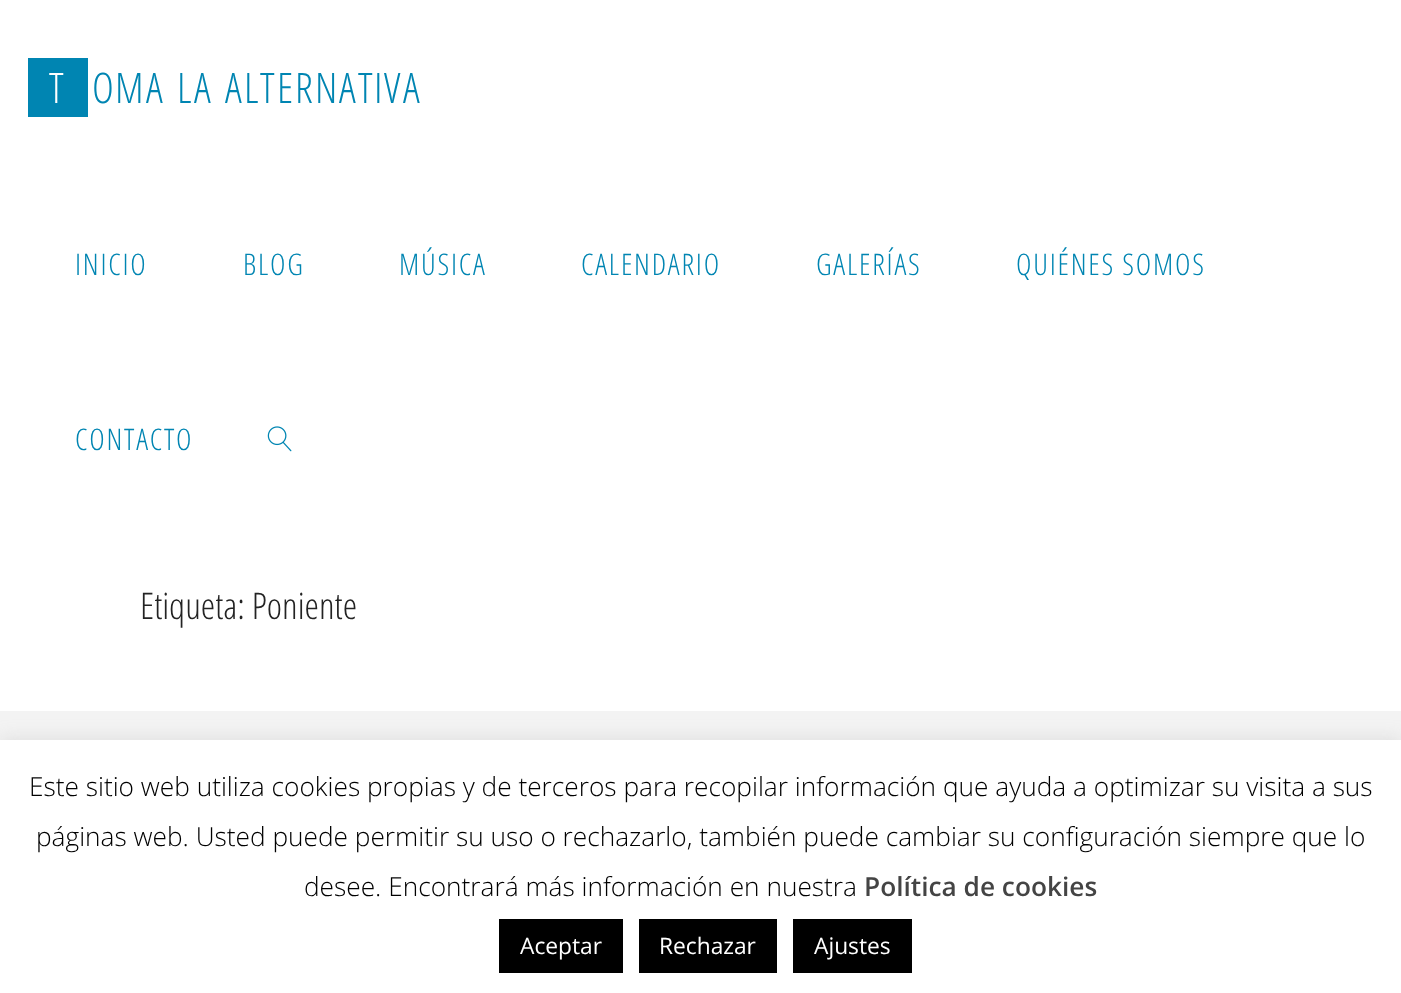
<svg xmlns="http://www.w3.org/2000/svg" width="1401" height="993">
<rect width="100%" height="100%" fill="#f3f3f3"/>
<rect width="1401" height="711" fill="#fff"/>
<rect x="28" y="58" width="60" height="59" fill="#0085b2"/>
<text x="49" y="103" style="font-family:Open Sans Condensed;font-size:42px;font-weight:300;fill:#fff">T</text>
<text x="92" y="103" style="font-family:Open Sans Condensed;font-size:42px;font-weight:300;fill:#0085b2">O</text>
<text x="115" y="103" style="font-family:Open Sans Condensed;font-size:42px;font-weight:300;fill:#0085b2">M</text>
<text x="146" y="103" style="font-family:Open Sans Condensed;font-size:42px;font-weight:300;fill:#0085b2">A</text>
<text x="177" y="103" style="font-family:Open Sans Condensed;font-size:42px;font-weight:300;fill:#0085b2">L</text>
<text x="194" y="103" style="font-family:Open Sans Condensed;font-size:42px;font-weight:300;fill:#0085b2">A</text>
<text x="225" y="103" style="font-family:Open Sans Condensed;font-size:42px;font-weight:300;fill:#0085b2">A</text>
<text x="244" y="103" style="font-family:Open Sans Condensed;font-size:42px;font-weight:300;fill:#0085b2">L</text>
<text x="260" y="103" style="font-family:Open Sans Condensed;font-size:42px;font-weight:300;fill:#0085b2">T</text>
<text x="277" y="103" style="font-family:Open Sans Condensed;font-size:42px;font-weight:300;fill:#0085b2">E</text>
<text x="295" y="103" style="font-family:Open Sans Condensed;font-size:42px;font-weight:300;fill:#0085b2">R</text>
<text x="315" y="103" style="font-family:Open Sans Condensed;font-size:42px;font-weight:300;fill:#0085b2">N</text>
<text x="339" y="103" style="font-family:Open Sans Condensed;font-size:42px;font-weight:300;fill:#0085b2">A</text>
<text x="358" y="103" style="font-family:Open Sans Condensed;font-size:42px;font-weight:300;fill:#0085b2">T</text>
<text x="374" y="103" style="font-family:Open Sans Condensed;font-size:42px;font-weight:300;fill:#0085b2">I</text>
<text x="384" y="103" style="font-family:Open Sans Condensed;font-size:42px;font-weight:300;fill:#0085b2">V</text>
<text x="403" y="103" style="font-family:Open Sans Condensed;font-size:42px;font-weight:300;fill:#0085b2">A</text>
<text x="75" y="275" style="font-family:Open Sans Condensed;font-size:29.75px;font-weight:300;letter-spacing:1.75px;fill:#0085b2">INICIO</text>
<text x="243" y="275" style="font-family:Open Sans Condensed;font-size:29.75px;font-weight:300;letter-spacing:1.75px;fill:#0085b2">BLOG</text>
<text x="399" y="275" style="font-family:Open Sans Condensed;font-size:29.75px;font-weight:300;letter-spacing:1.75px;fill:#0085b2">MÚSICA</text>
<text x="581" y="275" style="font-family:Open Sans Condensed;font-size:29.75px;font-weight:300;letter-spacing:1.75px;fill:#0085b2">CALENDARIO</text>
<text x="816" y="275" style="font-family:Open Sans Condensed;font-size:29.75px;font-weight:300;letter-spacing:1.75px;fill:#0085b2">GALERÍAS</text>
<text x="1016" y="275" style="font-family:Open Sans Condensed;font-size:29.75px;font-weight:300;letter-spacing:1.75px;fill:#0085b2">QUIÉNES SOMOS</text>
<text x="75" y="450" style="font-family:Open Sans Condensed;font-size:29.75px;font-weight:300;letter-spacing:1.75px;fill:#0085b2">CONTACTO</text>
<image x="267" y="426" width="25" height="26" href="media/1.png"/>
<text x="140" y="619" style="font-family:Open Sans Condensed;font-size:36.75px;font-weight:300;fill:#232323">Etiqueta: Poniente</text>
<rect y="739" width="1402" height="253" fill="#acabab4d" filter="blur(9px)"/>
<rect y="740" width="1401" height="253" fill="#fff"/>
<text x="29" y="796" style="font-family:Open Sans;font-size:26.25px;font-weight:300;fill:#000">Este sitio web utiliza cookies propias y de terceros para recopilar información que ayuda a optimizar su visita a sus</text>
<text x="36" y="846" style="font-family:Open Sans;font-size:26.25px;font-weight:300;fill:#000">páginas web. Usted puede permitir su uso o rechazarlo, también puede cambiar su configuración siempre que lo</text>
<text x="304" y="896" style="font-family:Open Sans;font-size:26.25px;font-weight:300;fill:#000">desee. Encontrará más información en nuestra</text>
<text x="864" y="896" style="font-family:Open Sans;font-size:26.25px;font-weight:600;fill:#444">Política de cookies</text>
<rect x="499" y="919" width="124" height="54" fill="#000"/>
<text x="520" y="954" style="font-family:Open Sans;font-size:22.75px;fill:#fff">Aceptar</text>
<rect x="639" y="919" width="138" height="54" fill="#000"/>
<text x="659" y="954" style="font-family:Open Sans;font-size:22.75px;fill:#fff">Rechazar</text>
<rect x="793" y="919" width="119" height="54" fill="#000"/>
<text x="814" y="954" style="font-family:Open Sans;font-size:22.75px;fill:#fff">Ajustes</text>
</svg>
